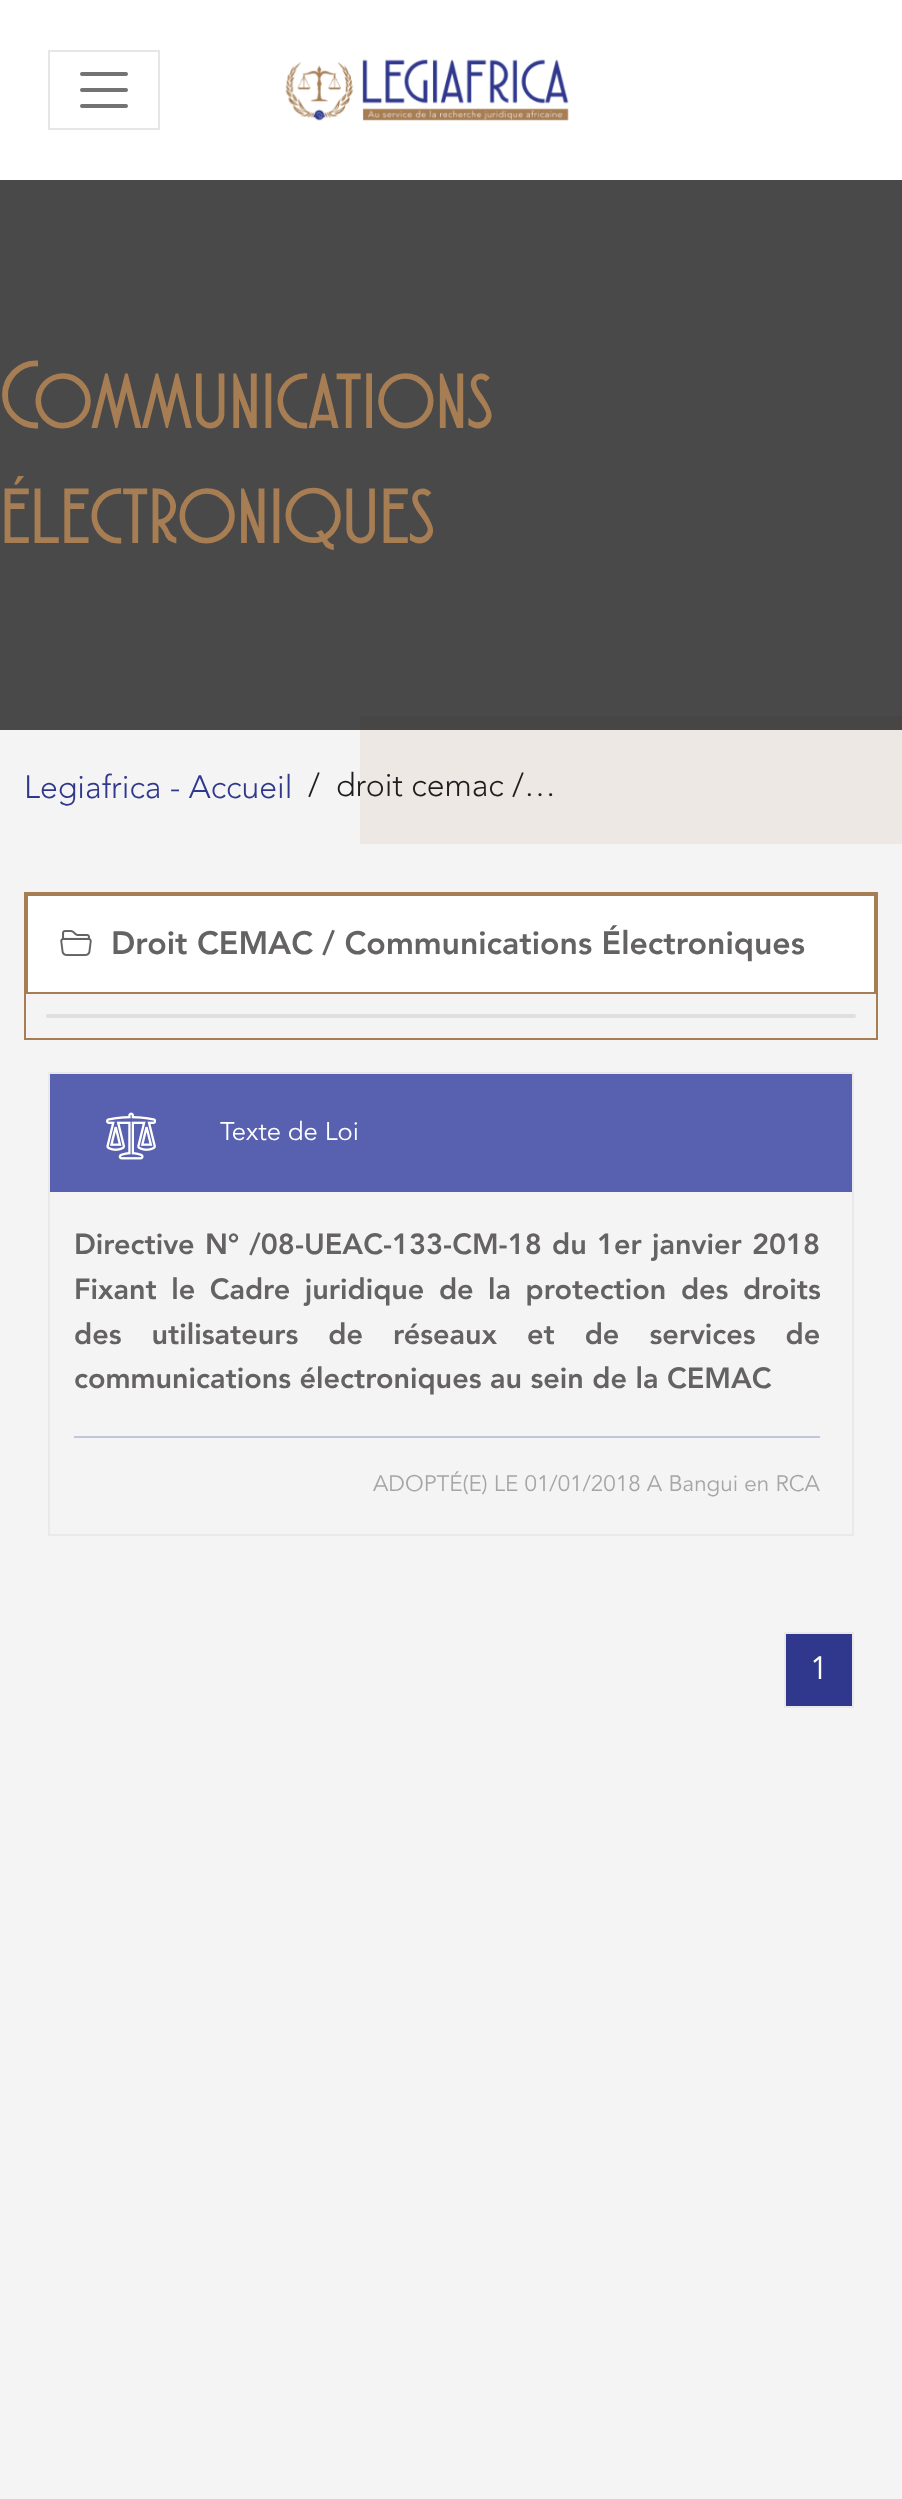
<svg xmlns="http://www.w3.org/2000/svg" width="902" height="2499">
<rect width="100%" height="100%" fill="#f4f4f4"/>
<rect y="180" width="902" height="550" fill="#494949"/>
<rect width="902" height="180" fill="#fff"/>
<rect x="49" y="51" width="110" height="78" fill="none" stroke="#e6e6e6" stroke-width="2"/>
<path d="M82 74h44m-44 16h44m-44 16h44" fill="none" stroke="#737373" stroke-width="4" stroke-linecap="round"/>
<image x="285" y="59" width="284" height="62" href="media/1.png"/>
<rect x="360" y="730" width="542" height="114" fill="#ede8e4"/>
<rect x="360" y="716" width="542" height="14" fill="#474644"/>
<text x="0" y="428" style="font-family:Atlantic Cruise;font-size:96px;fill:#a77d53">Communications</text>
<text x="0" y="543" style="font-family:Atlantic Cruise;font-size:96px;fill:#a77d53">électroniques</text>
<text x="24" y="798" style="font-family:Avenir;font-size:32px;font-weight:300;fill:#2f388c">Legiafrica - Accueil</text>
<text x="308" y="796" style="font-family:Avenir;font-size:32px;font-weight:300;fill:#201c1d">/</text>
<text x="336" y="796" style="font-family:Avenir;font-size:32px;font-weight:300;fill:#201c1d">droit cemac /…</text>
<rect x="25" y="893" width="852" height="146" fill="none" stroke="#a77d53" stroke-width="2"/>
<rect x="27" y="895" width="848" height="98" fill="#fff" stroke="#a77d53" stroke-width="2"/>
<image x="60" y="930" width="32" height="26" href="media/2.png"/>
<text x="111" y="954" style="font-family:Avenir;font-size:32px;font-weight:900;fill:#656263">Droit CEMAC / Communications Électroniques</text>
<rect x="46" y="1014" width="810" height="4" rx="2" fill="#dfdfdf"/>
<rect x="49" y="1073" width="804" height="462" fill="none" stroke="#e9e9e9" stroke-width="2"/>
<rect x="50" y="1074" width="802" height="118" fill="#5861af"/>
<image x="106" y="1112" width="50" height="48" href="media/3.png"/>
<text x="220" y="1140" style="font-family:Avenir;font-size:25.5px;fill:#fff">Texte de Loi</text>
<text x="74" y="1254" word-spacing="1.75" style="font-family:Avenir;font-size:28.8px;font-weight:900;fill:#656263">Directive N° /08-UEAC-133-CM-18 du 1er janvier 2018</text>
<text x="74" y="1299" word-spacing="6" style="font-family:Avenir;font-size:28.8px;font-weight:900;fill:#656263">Fixant le Cadre juridique de la protection des droits</text>
<text x="74" y="1344" word-spacing="21.5" style="font-family:Avenir;font-size:28.8px;font-weight:900;fill:#656263">des utilisateurs de réseaux et de services de</text>
<text x="74" y="1388" style="font-family:Avenir;font-size:28.8px;font-weight:900;fill:#656263">communications électroniques au sein de la CEMAC</text>
<rect x="74" y="1436" width="746" height="2" fill="#c3c5da"/>
<text x="373" y="1491" style="font-family:Avenir;font-size:22.4px;fill:#a7a5a6">ADOPTÉ(E) LE 01/01/2018 A Bangui en RCA</text>
<rect x="785" y="1633" width="68" height="74" fill="#2f388c" stroke="#e9e9e9" stroke-width="2"/>
<text x="810" y="1679" style="font-family:Avenir;font-size:32px;fill:#fff">1</text>
</svg>
